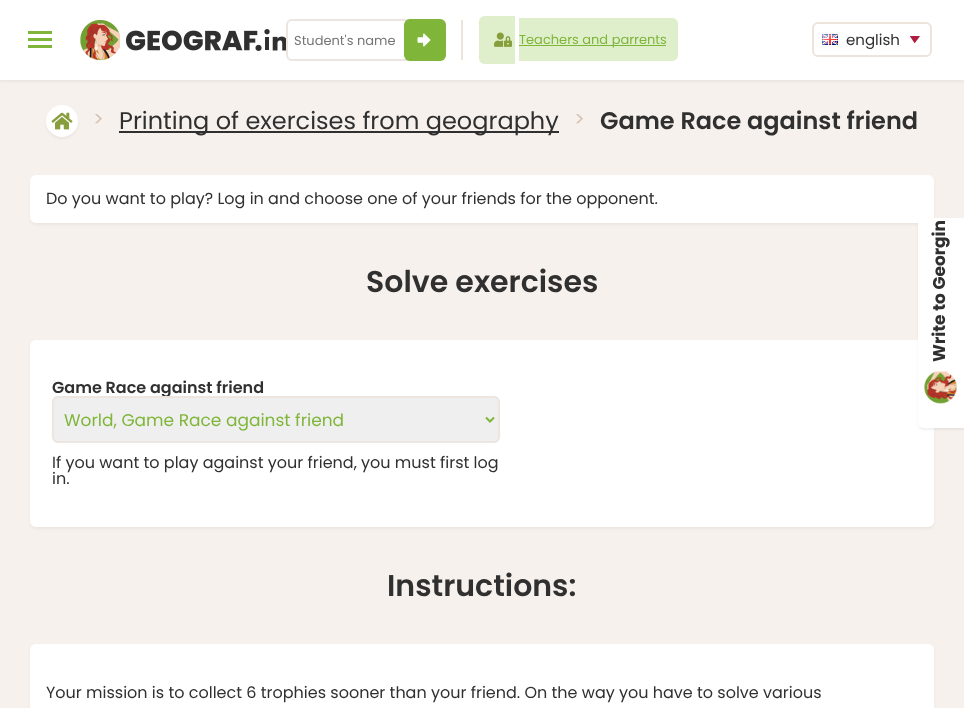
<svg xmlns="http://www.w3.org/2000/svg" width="964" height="708">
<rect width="100%" height="100%" fill="#f6f1ed"/>
<rect y="2" width="964" height="80" fill="#ece5e0" filter="blur(1px)"/>
<rect width="964" height="80" fill="#fff"/>
<rect x="28" y="31" width="24" height="3" fill="#7fb539"/>
<rect x="28" y="38" width="24" height="3" fill="#7fb539"/>
<rect x="28" y="45" width="24" height="3" fill="#7fb539"/>
<image x="80" y="20" width="40" height="40" href="media/1.png"/>
<image x="126" y="29" width="160" height="22" href="media/2.png"/>
<rect x="287" y="20" width="158" height="40" rx="5" fill="none" stroke="#ece5e0" stroke-width="2"/>
<text x="294" y="45" style="font-family:Poppins;font-size:13px;fill:#757575">Student's name</text>
<rect x="404" y="19" width="42" height="42" rx="6" fill="#7fb539"/>
<image x="417" y="33" width="14" height="14" href="media/3.png"/>
<rect x="461" y="20" width="2" height="40" fill="#ede4dc"/>
<path d="M485 16h30v48h-30c-3.5 0-6-2.5-6-6v-36c0-3.5 2.5-6 6-6z" fill="#dfefcb"/>
<path d="M519 18h153c3.5 0 6 2.5 6 6v31c0 3.5-2.5 6-6 6h-153z" fill="#dfefcb"/>
<image x="494" y="32" width="18" height="15" href="media/4.png"/>
<rect x="519" y="45" width="147" height="1" fill="#7fb539"/>
<text x="519" y="44" style="font-family:Poppins;font-size:13px;fill:#7fb539">Teachers and parrents</text>
<image x="910" y="36" width="10" height="7" href="media/5.png"/>
<rect x="813" y="23" width="118" height="33" rx="5" fill="none" stroke="#ede4dc" stroke-width="2"/>
<image x="822" y="34" width="16" height="11" href="media/6.png"/>
<text x="846" y="45" style="font-family:Poppins;font-size:15px;fill:#303030">english</text>
<rect x="46" y="107" width="32" height="32" rx="16" fill="#ece5e0" filter="blur(1px)"/>
<circle cx="62" cy="121" r="16" fill="#fff"/>
<image x="51" y="112" width="22" height="18" href="media/7.png"/>
<text x="93" y="126" style="font-family:Poppins;font-size:20px;fill:#d7c3b1">&gt;</text>
<rect x="119" y="131" width="440" height="2" fill="#303030"/>
<text x="119" y="129" style="font-family:Poppins;font-size:24px;fill:#303030">Printing of exercises from geography</text>
<text x="574" y="126" style="font-family:Poppins;font-size:20px;fill:#d7c3b1">&gt;</text>
<text x="600" y="129" style="font-family:Poppins;font-size:24px;font-weight:600;fill:#303030">Game Race against friend</text>
<rect x="30" y="177" width="904" height="48" rx="6" fill="#ece5e0" filter="blur(1px)"/>
<rect x="30" y="175" width="904" height="48" rx="6" fill="#fff"/>
<text x="46" y="204" style="font-family:Poppins;font-size:16px;fill:#303030">Do you want to play? Log in and choose one of your friends for the opponent.</text>
<text x="366" y="292" style="font-family:Poppins;font-size:30px;font-weight:600;fill:#303030">Solve exercises</text>
<rect x="30" y="342" width="904" height="187" rx="6" fill="#ece5e0" filter="blur(1px)"/>
<rect x="30" y="340" width="904" height="187" rx="6" fill="#fff"/>
<text x="52" y="393" style="font-family:Poppins;font-size:16px;font-weight:600;fill:#303030">Game Race against friend</text>
<rect x="53" y="397" width="446" height="45" rx="5" fill="#efefef" stroke="#ece5e0" stroke-width="2"/>
<path d="M486 417.5l4 4l4-4" fill="none" stroke="#7fb539" stroke-width="2"/>
<text x="64" y="426" style="font-family:Poppins;font-size:17px;fill:#7fb539">World, Game Race against friend</text>
<text x="52" y="468" style="font-family:Poppins;font-size:16px;fill:#303030">If you want to play against your friend, you must first log</text>
<text x="52" y="484" style="font-family:Poppins;font-size:16px;fill:#303030">in.</text>
<text x="387" y="596" style="font-family:Poppins;font-size:30px;font-weight:600;fill:#303030">Instructions:</text>
<rect x="30" y="646" width="904" height="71" rx="6" fill="#ece5e0" filter="blur(1px)"/>
<rect x="30" y="644" width="904" height="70" rx="6" fill="#fff"/>
<text x="46" y="698" style="font-family:Poppins;font-size:16px;fill:#303030">Your mission is to collect 6 trophies sooner than your friend. On the way you have to solve various</text>
<rect x="918" y="220" width="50" height="210" rx="6" fill="#30303012" filter="blur(1px)"/>
<path d="M924 218h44v210h-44c-3.5 0-6-2.5-6-6v-198c0-3.5 2.5-6 6-6z" fill="#fff"/>
<text x="945" y="362" transform="rotate(-90 945 362)" style="font-family:Poppins;font-size:17px;font-weight:bold;fill:#303030">Write to Georgin</text>
<image x="924" y="371" width="33" height="33" href="media/8.png"/>
</svg>
